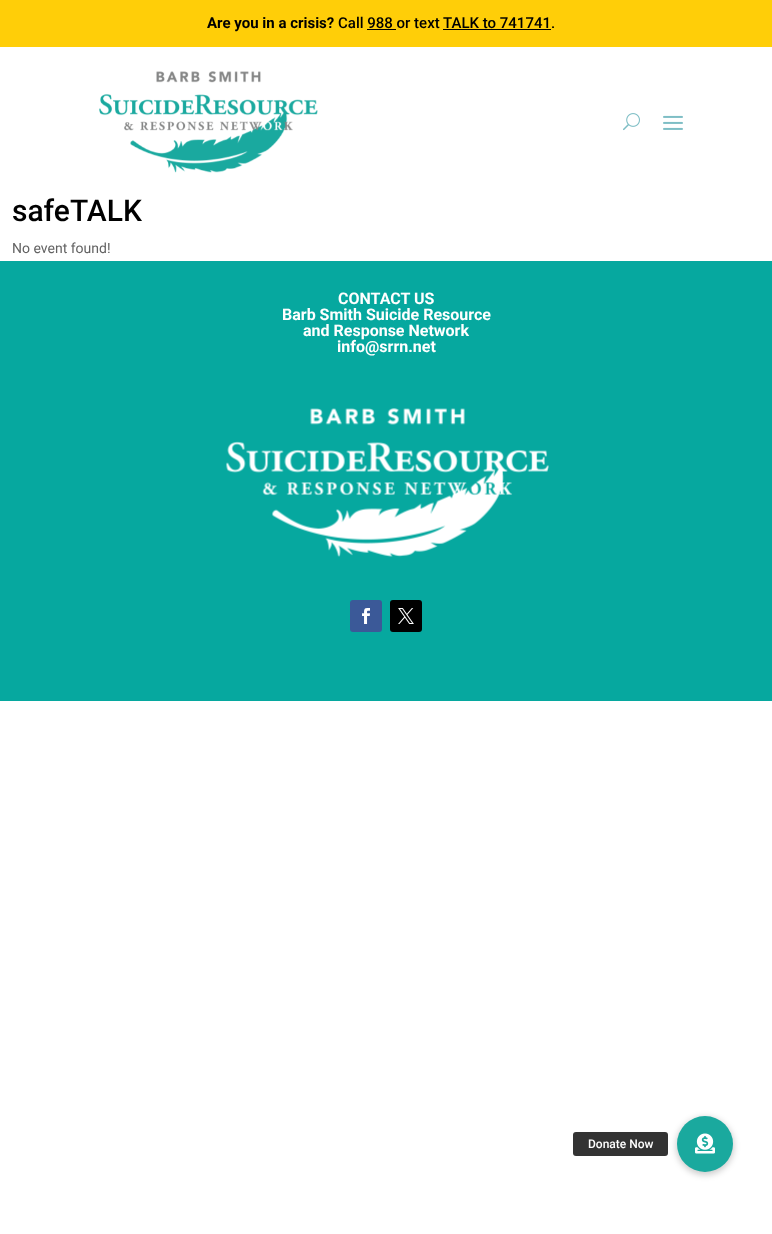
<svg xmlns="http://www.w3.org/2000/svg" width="772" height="1234">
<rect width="100%" height="100%" fill="#fff"/>
<rect width="772" height="47" fill="#ffce08"/>
<text x="207" y="28" style="font-family:Roboto;font-size:15px;font-weight:bold;fill:#000">Are you in a crisis?</text>
<text x="338" y="28" style="font-family:Roboto;font-size:15px;font-weight:500;fill:#000">Call 988 or text TALK to 741741.</text>
<rect x="367" y="29" width="29" height="1" fill="#000"/>
<rect x="443" y="29" width="108" height="1" fill="#000"/>
<image x="99" y="71" width="219" height="102" href="media/1.png"/>
<image x="623" y="113" width="17" height="18" href="media/2.png"/>
<image x="663" y="115" width="20" height="15" href="media/3.png"/>
<text x="12" y="221" style="font-family:Roboto;font-size:30px;font-weight:500;fill:#000">safeTALK</text>
<text x="12" y="253" style="font-family:Roboto;font-size:14px;fill:#626262">No event found!</text>
<rect y="261" width="772" height="440" fill="#06a89f"/>
<text x="338" y="304" style="font-family:Roboto;font-size:16px;font-weight:bold;fill:#fff">CONTACT US</text>
<text x="282" y="320" style="font-family:Roboto;font-size:16px;font-weight:bold;fill:#fff">Barb Smith Suicide Resource</text>
<text x="303" y="336" style="font-family:Roboto;font-size:16px;font-weight:bold;fill:#fff">and Response Network</text>
<text x="337" y="352" style="font-family:Roboto;font-size:16px;font-weight:bold;fill:#fff">info@srrn.net</text>
<image x="226" y="408" width="323" height="149" href="media/4.png"/>
<rect x="350" y="600" width="32" height="32" rx="3" fill="#3b5998"/>
<image x="362" y="608" width="8" height="16" href="media/5.png"/>
<rect x="390" y="600" width="32" height="32" rx="3" fill="#000"/>
<image x="398" y="608" width="16" height="16" href="media/6.png"/>
<rect x="676" y="1117" width="58" height="58" rx="29" fill="#00000033" filter="blur(3px)"/>
<circle cx="705" cy="1144" r="28" fill="#1aa99e"/>
<rect x="573" y="1132" width="95" height="24" rx="3" fill="#333"/>
<text x="588" y="1148" style="font-family:Roboto;font-size:12px;font-weight:500;fill:#fff">Donate Now</text>
<image x="695" y="1133" width="20" height="21" href="media/7.png"/>
</svg>
